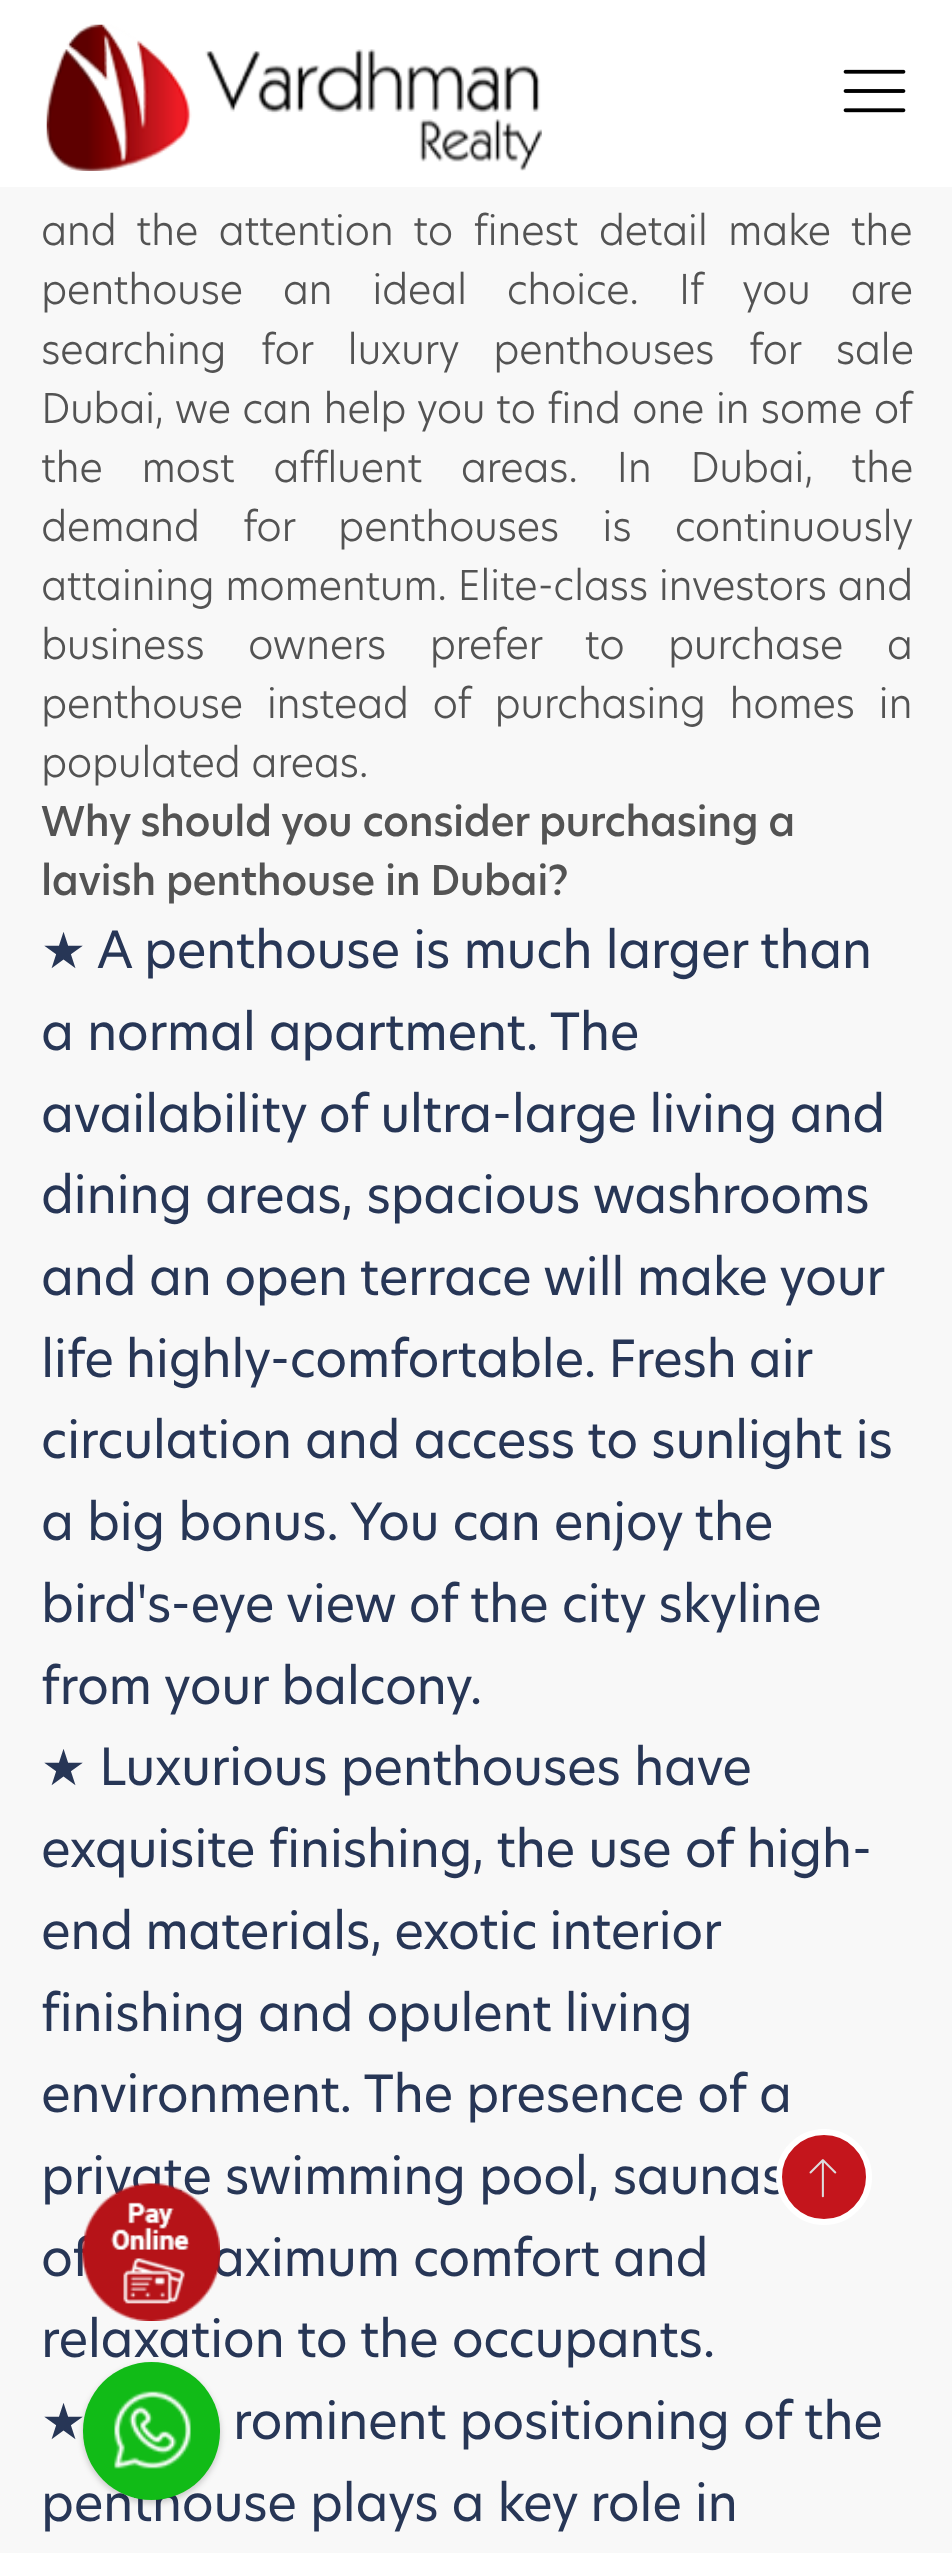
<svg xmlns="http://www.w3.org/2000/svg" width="952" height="2553">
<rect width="100%" height="100%" fill="#f8f8f8"/>
<rect width="952" height="187" fill="#ffffffe8"/>
<image x="46" y="24" width="496" height="147" href="media/1.png"/>
<image x="843" y="69" width="63" height="44" href="media/2.png"/>
<text x="41" y="245" word-spacing="9.75" style="font-family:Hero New;font-size:40.5px;font-weight:300;letter-spacing:-0.45px;fill:#535353">and the attention to finest detail make the</text>
<text x="41" y="304" word-spacing="29" style="font-family:Hero New;font-size:40.5px;font-weight:300;letter-spacing:-0.45px;fill:#535353">penthouse an ideal choice. If you are</text>
<text x="41" y="364" word-spacing="24" style="font-family:Hero New;font-size:40.5px;font-weight:300;letter-spacing:-0.45px;fill:#535353">searching for luxury penthouses for sale</text>
<text x="41" y="423" word-spacing="0.6" style="font-family:Hero New;font-size:40.5px;font-weight:300;letter-spacing:-0.45px;fill:#535353">Dubai, we can help you to find one in some of</text>
<text x="41" y="482" word-spacing="28" style="font-family:Hero New;font-size:40.5px;font-weight:300;letter-spacing:-0.45px;fill:#535353">the most affluent areas. In Dubai, the</text>
<text x="41" y="541" word-spacing="32.5" style="font-family:Hero New;font-size:40.5px;font-weight:300;letter-spacing:-0.45px;fill:#535353">demand for penthouses is continuously</text>
<text x="41" y="600" style="font-family:Hero New;font-size:40.5px;font-weight:300;letter-spacing:-0.45px;fill:#535353">attaining momentum. Elite-class investors and</text>
<text x="41" y="659" word-spacing="32.75" style="font-family:Hero New;font-size:40.5px;font-weight:300;letter-spacing:-0.45px;fill:#535353">business owners prefer to purchase a</text>
<text x="41" y="718" word-spacing="13" style="font-family:Hero New;font-size:40.5px;font-weight:300;letter-spacing:-0.45px;fill:#535353">penthouse instead of purchasing homes in</text>
<text x="41" y="777" style="font-family:Hero New;font-size:40.5px;font-weight:300;letter-spacing:-0.45px;fill:#535353">populated areas.</text>
<text x="41" y="836" style="font-family:Hero New;font-size:40.5px;font-weight:500;letter-spacing:-0.45px;fill:#535353">Why should you consider purchasing a</text>
<text x="41" y="895" style="font-family:Hero New;font-size:40.5px;font-weight:500;letter-spacing:-0.45px;fill:#535353">lavish penthouse in Dubai?</text>
<text x="41" y="968" style="font-family:DejaVu Sans;font-size:50.25px;letter-spacing:-0.45px;fill:#273656">★</text>
<text x="97" y="968" style="font-family:Hero New;font-size:50.25px;letter-spacing:-0.45px;fill:#273656">A penthouse is much larger than</text>
<text x="41" y="1050" style="font-family:Hero New;font-size:50.25px;letter-spacing:-0.45px;fill:#273656">a normal apartment. The</text>
<text x="41" y="1132" word-spacing="-0.5" style="font-family:Hero New;font-size:50.25px;letter-spacing:-0.45px;fill:#273656">availability of ultra-large living and</text>
<text x="41" y="1213" style="font-family:Hero New;font-size:50.25px;letter-spacing:-0.45px;fill:#273656">dining areas, spacious washrooms</text>
<text x="41" y="1295" word-spacing="-0.5" style="font-family:Hero New;font-size:50.25px;letter-spacing:-0.45px;fill:#273656">and an open terrace will make your</text>
<text x="41" y="1377" word-spacing="-1" style="font-family:Hero New;font-size:50.25px;letter-spacing:-0.45px;fill:#273656">life highly-comfortable. Fresh air</text>
<text x="41" y="1458" style="font-family:Hero New;font-size:50.25px;letter-spacing:-0.45px;fill:#273656">circulation and access to sunlight is</text>
<text x="41" y="1540" style="font-family:Hero New;font-size:50.25px;letter-spacing:-0.45px;fill:#273656">a big bonus. You can enjoy the</text>
<text x="41" y="1622" style="font-family:Hero New;font-size:50.25px;letter-spacing:-0.45px;fill:#273656">bird's-eye view of the city skyline</text>
<text x="41" y="1704" style="font-family:Hero New;font-size:50.25px;letter-spacing:-0.45px;fill:#273656">from your balcony.</text>
<text x="41" y="1785" style="font-family:DejaVu Sans;font-size:50.25px;letter-spacing:-0.45px;fill:#273656">★</text>
<text x="99" y="1785" style="font-family:Hero New;font-size:50.25px;letter-spacing:-0.45px;fill:#273656">Luxurious penthouses have</text>
<text x="41" y="1867" style="font-family:Hero New;font-size:50.25px;letter-spacing:-0.45px;fill:#273656">exquisite finishing, the use of high-</text>
<text x="41" y="1949" word-spacing="-1" style="font-family:Hero New;font-size:50.25px;letter-spacing:-0.45px;fill:#273656">end materials, exotic interior</text>
<text x="41" y="2031" style="font-family:Hero New;font-size:50.25px;letter-spacing:-0.45px;fill:#273656">finishing and opulent living</text>
<text x="41" y="2112" style="font-family:Hero New;font-size:50.25px;letter-spacing:-0.45px;fill:#273656">environment. The presence of a</text>
<text x="41" y="2194" style="font-family:Hero New;font-size:50.25px;letter-spacing:-0.45px;fill:#273656">private swimming pool, saunas</text>
<text x="41" y="2276" style="font-family:Hero New;font-size:50.25px;letter-spacing:-0.45px;fill:#273656">of</text>
<text x="212" y="2276" style="font-family:Hero New;font-size:50.25px;letter-spacing:-0.45px;fill:#273656">aximum comfort and</text>
<text x="41" y="2357" style="font-family:Hero New;font-size:50.25px;letter-spacing:-0.45px;fill:#273656">relaxation to the occupants.</text>
<text x="41" y="2439" style="font-family:DejaVu Sans;font-size:50.25px;letter-spacing:-0.45px;fill:#273656">★</text>
<text x="233" y="2439" style="font-family:Hero New;font-size:50.25px;letter-spacing:-0.45px;fill:#273656">rominent positioning of the</text>
<text x="41" y="2521" style="font-family:Hero New;font-size:50.25px;letter-spacing:-0.45px;fill:#273656">penthouse plays a key role in</text>
<image x="82" y="2183" width="138" height="138" href="media/3.png"/>
<rect x="83" y="2365" width="137" height="138" rx="68.5" fill="#00000033" filter="blur(3px)"/>
<rect x="83" y="2362" width="137" height="138" rx="68.5" fill="#11bb17"/>
<image x="114" y="2390" width="77" height="79" href="media/4.png"/>
<circle cx="824" cy="2177" r="45" fill="#c4151c" stroke="#fff" stroke-width="6"/>
<image x="809" y="2159" width="28" height="39" href="media/5.png"/>
</svg>
